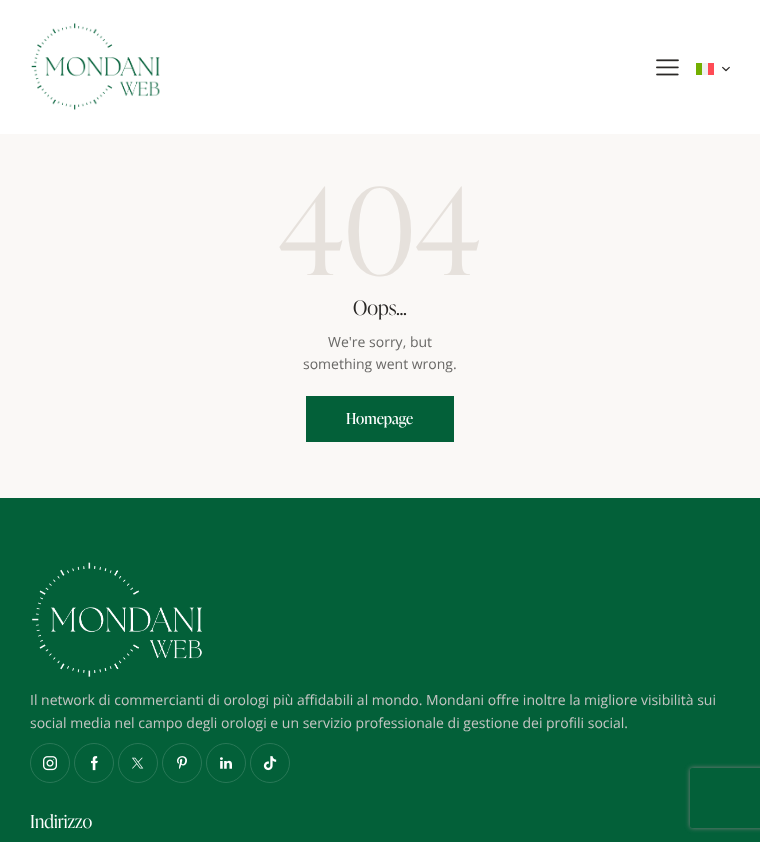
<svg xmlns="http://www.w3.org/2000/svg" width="760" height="842">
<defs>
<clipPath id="clip1"><path d="M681 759h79v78h-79zm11 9h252c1 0 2 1 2 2v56c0 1-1 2-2 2h-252c-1 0-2-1-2-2v-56c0-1 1-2 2-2z" clip-rule="evenodd"/></clipPath>
</defs>
<rect width="100%" height="100%" fill="#faf8f6"/>
<rect width="760" height="134" fill="#fff"/>
<image x="31" y="23" width="129" height="87" href="media/1.png"/>
<image x="656" y="59" width="23" height="17" href="media/2.png"/>
<rect x="702" y="63" width="6" height="12" fill="#f0f0f0"/>
<rect x="708" y="63" width="6" height="12" fill="#ff4b55"/>
<rect x="696" y="63" width="6" height="12" fill="#73af00"/>
<image x="722" y="66" width="8" height="6" href="media/3.png"/>
<text x="279" y="275" style="font-family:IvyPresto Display;font-size:120px;font-weight:300;fill:#e6e1dc">404</text>
<text x="353" y="315" style="font-family:IvyPresto Display;font-size:20px;font-weight:300;fill:#2a2826">Oops...</text>
<text x="328" y="347" style="font-family:Open Sans;font-size:14px;fill:#696866">We're sorry, but</text>
<text x="303" y="369" style="font-family:Open Sans;font-size:14px;fill:#696866">something went wrong.</text>
<rect x="306" y="396" width="148" height="46" fill="#036039"/>
<text x="346" y="424" style="font-family:IvyPresto Display;font-size:15px;fill:#fff">Homepage</text>
<rect y="498" width="760" height="344" fill="#036039"/>
<image x="32" y="562" width="170" height="115" href="media/4.png"/>
<text x="30" y="705" style="font-family:Open Sans;font-size:14px;fill:#c5c5c3">Il network di commercianti di orologi più affidabili al mondo. Mondani offre inoltre la migliore visibilità sui</text>
<text x="30" y="728" style="font-family:Open Sans;font-size:14px;fill:#c5c5c3">social media nel campo degli orologi e un servizio professionale di gestione dei profili social.</text>
<circle cx="50" cy="763" r="19.5" fill="none" stroke="#297857"/>
<image x="43" y="756" width="14" height="15" href="media/5.png"/>
<circle cx="94" cy="763" r="19.5" fill="none" stroke="#297857"/>
<image x="91" y="756" width="7" height="15" href="media/6.png"/>
<circle cx="138" cy="763" r="19.5" fill="none" stroke="#297857"/>
<image x="132" y="757" width="12" height="12" href="media/7.png"/>
<circle cx="182" cy="763" r="19.5" fill="none" stroke="#297857"/>
<image x="177" y="756" width="10" height="13" href="media/8.png"/>
<circle cx="226" cy="763" r="19.5" fill="none" stroke="#297857"/>
<image x="220" y="757" width="12" height="12" href="media/9.png"/>
<circle cx="270" cy="763" r="19.5" fill="none" stroke="#297857"/>
<image x="263" y="756" width="14" height="15" href="media/10.png"/>
<text x="30" y="828" style="font-family:IvyPresto Display;font-size:18px;font-weight:300;fill:#fff">Indirizzo</text>
<g clip-path="url(#clip1)">
<rect x="690" y="768" width="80" height="60" rx="2" fill="#808080" filter="blur(2.5px)"/>
</g>
</svg>
